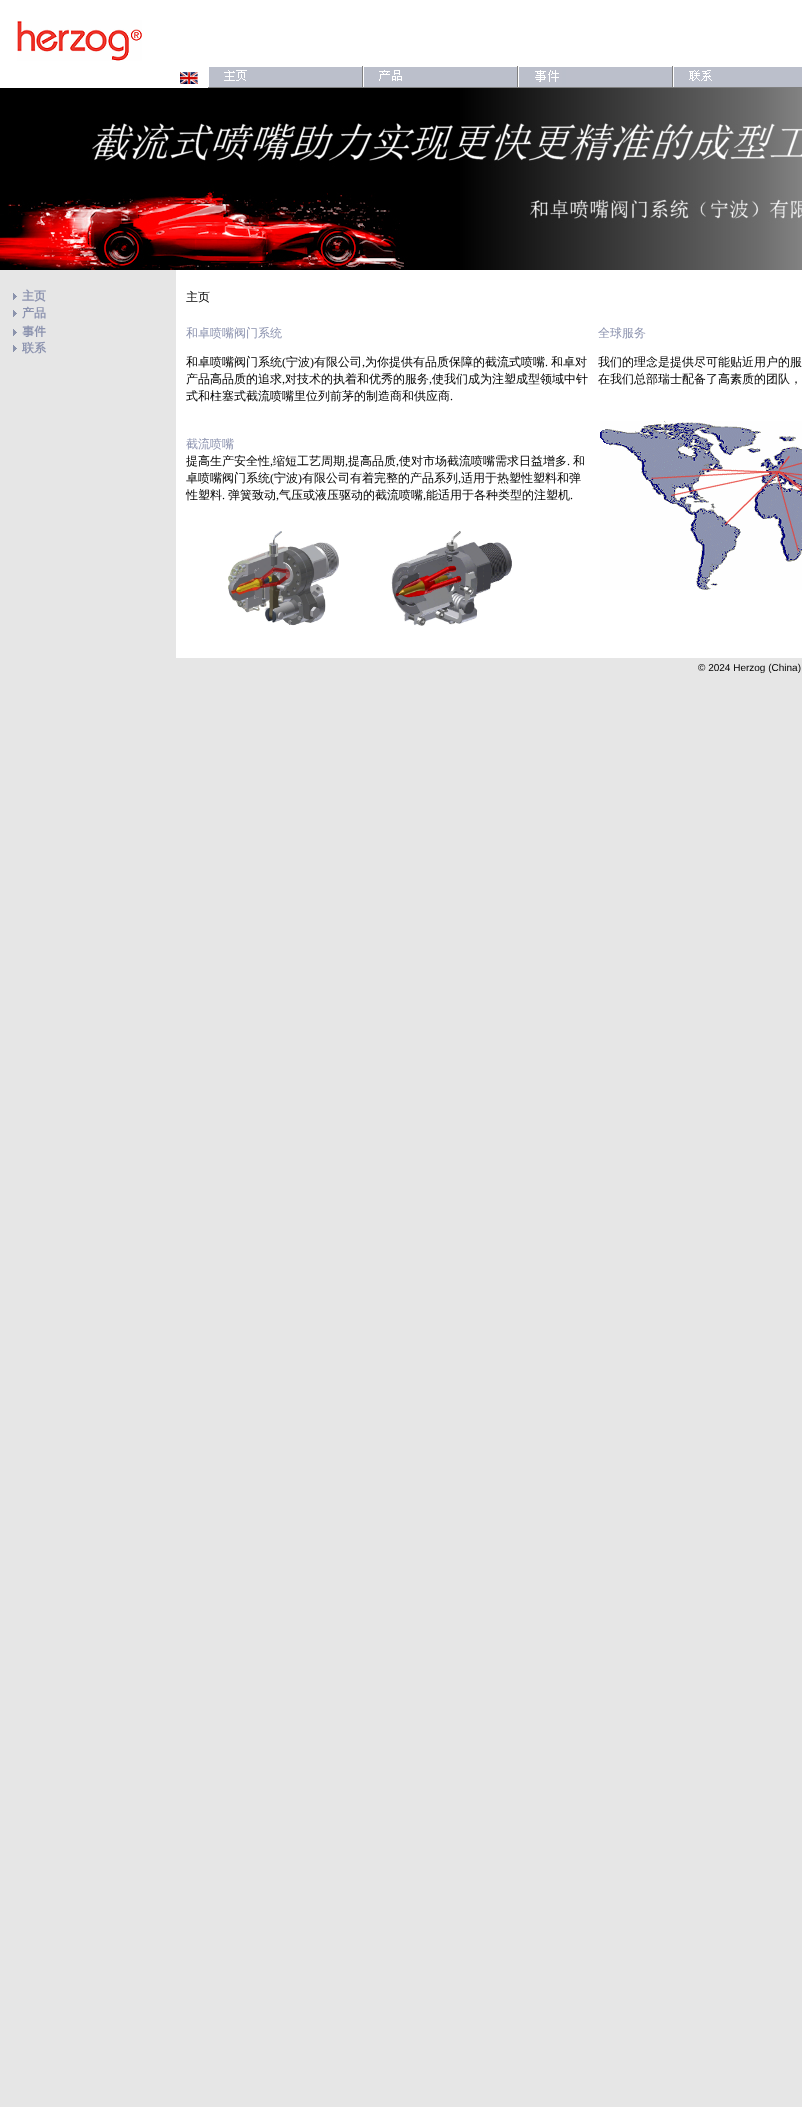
<svg xmlns="http://www.w3.org/2000/svg" width="802" height="2107">
<rect width="100%" height="100%" fill="#e6e6e6"/>
<rect width="802" height="88" fill="#fff"/>
<image x="17" y="20" width="125" height="41" href="media/1.png"/>
<image x="180" y="72" width="18" height="12" href="media/2.png"/>
<image x="208" y="66" width="155" height="22" href="media/3.png"/>
<image x="363" y="66" width="155" height="22" href="media/4.png"/>
<image x="518" y="66" width="155" height="22" href="media/5.png"/>
<image x="673" y="67" width="129" height="21" href="media/6.png"/>
<image x="0" y="88" width="802" height="182" href="media/7.png"/>
<image x="13" y="293" width="4" height="7" href="media/8.png"/>
<text x="22" y="300" style="font-family:WenQuanYi Zen Hei;font-size:12px;font-weight:bold;fill:#8c93af">主页</text>
<image x="13" y="310" width="4" height="7" href="media/8.png"/>
<text x="22" y="317" style="font-family:WenQuanYi Zen Hei;font-size:12px;font-weight:bold;fill:#8c93af">产品</text>
<image x="13" y="329" width="4" height="7" href="media/8.png"/>
<text x="22" y="336" style="font-family:Noto Sans CJK SC;font-size:12px;font-weight:bold;fill:#8c93af">事件</text>
<image x="13" y="345" width="4" height="7" href="media/8.png"/>
<text x="22" y="352" style="font-family:WenQuanYi Zen Hei;font-size:12px;font-weight:bold;fill:#8c93af">联系</text>
<rect x="176" y="270" width="626" height="388" fill="#fff"/>
<text x="186" y="301" style="font-family:WenQuanYi Zen Hei;font-size:12px;font-weight:500;fill:#000">主页</text>
<text x="186" y="337" style="font-family:WenQuanYi Zen Hei;font-size:12px;font-weight:500;fill:#8c93af">和卓喷嘴阀门系统</text>
<text x="186" y="366" style="font-family:WenQuanYi Zen Hei;font-size:12px;font-weight:500;fill:#000">和卓喷嘴阀门系统</text>
<text x="282" y="366" style="font-family:Liberation Serif;font-size:12px;fill:#000">(</text>
<text x="286" y="366" style="font-family:WenQuanYi Zen Hei;font-size:12px;font-weight:500;fill:#000">宁波</text>
<text x="310" y="366" style="font-family:Liberation Serif;font-size:12px;fill:#000">)</text>
<text x="314" y="366" style="font-family:WenQuanYi Zen Hei;font-size:12px;font-weight:500;fill:#000">有限公司</text>
<text x="362" y="366" style="font-family:Liberation Serif;font-size:12px;fill:#000">,</text>
<text x="365" y="366" style="font-family:WenQuanYi Zen Hei;font-size:12px;font-weight:500;fill:#000">为你提供有品质保障的截流式喷嘴</text>
<text x="545" y="366" style="font-family:Liberation Serif;font-size:12px;fill:#000">.</text>
<text x="551" y="366" style="font-family:WenQuanYi Zen Hei;font-size:12px;font-weight:500;fill:#000">和卓对</text>
<text x="186" y="383" style="font-family:WenQuanYi Zen Hei;font-size:12px;font-weight:500;fill:#000">产品高品质的追求</text>
<text x="282" y="383" style="font-family:Liberation Serif;font-size:12px;fill:#000">,</text>
<text x="285" y="383" style="font-family:WenQuanYi Zen Hei;font-size:12px;font-weight:500;fill:#000">对技术的执着和优秀的服务</text>
<text x="429" y="383" style="font-family:Liberation Serif;font-size:12px;fill:#000">,</text>
<text x="432" y="383" style="font-family:WenQuanYi Zen Hei;font-size:12px;font-weight:500;fill:#000">使我们成为注塑成型领域中针</text>
<text x="186" y="400" style="font-family:WenQuanYi Zen Hei;font-size:12px;font-weight:500;fill:#000">式和柱塞式截流喷嘴里位列前茅的制造商和供应商</text>
<text x="450" y="400" style="font-family:Liberation Serif;font-size:12px;fill:#000">.</text>
<text x="186" y="448" style="font-family:WenQuanYi Zen Hei;font-size:12px;font-weight:500;fill:#8c93af">截流喷嘴</text>
<text x="186" y="465" style="font-family:WenQuanYi Zen Hei;font-size:12px;font-weight:500;fill:#000">提高生产安全性</text>
<text x="270" y="465" style="font-family:Liberation Serif;font-size:12px;fill:#000">,</text>
<text x="273" y="465" style="font-family:WenQuanYi Zen Hei;font-size:12px;font-weight:500;fill:#000">缩短工艺周期</text>
<text x="345" y="465" style="font-family:Liberation Serif;font-size:12px;fill:#000">,</text>
<text x="348" y="465" style="font-family:WenQuanYi Zen Hei;font-size:12px;font-weight:500;fill:#000">提高品质</text>
<text x="396" y="465" style="font-family:Liberation Serif;font-size:12px;fill:#000">,</text>
<text x="399" y="465" style="font-family:WenQuanYi Zen Hei;font-size:12px;font-weight:500;fill:#000">使对市场截流喷嘴需求日益增多</text>
<text x="567" y="465" style="font-family:Liberation Serif;font-size:12px;fill:#000">.</text>
<text x="573" y="465" style="font-family:WenQuanYi Zen Hei;font-size:12px;font-weight:500;fill:#000">和</text>
<text x="186" y="482" style="font-family:WenQuanYi Zen Hei;font-size:12px;font-weight:500;fill:#000">卓喷嘴阀门系统</text>
<text x="270" y="482" style="font-family:Liberation Serif;font-size:12px;fill:#000">(</text>
<text x="274" y="482" style="font-family:WenQuanYi Zen Hei;font-size:12px;font-weight:500;fill:#000">宁波</text>
<text x="298" y="482" style="font-family:Liberation Serif;font-size:12px;fill:#000">)</text>
<text x="302" y="482" style="font-family:WenQuanYi Zen Hei;font-size:12px;font-weight:500;fill:#000">有限公司有着完整的产品系列</text>
<text x="458" y="482" style="font-family:Liberation Serif;font-size:12px;fill:#000">,</text>
<text x="461" y="482" style="font-family:WenQuanYi Zen Hei;font-size:12px;font-weight:500;fill:#000">适用于热塑性塑料和弹</text>
<text x="186" y="499" style="font-family:WenQuanYi Zen Hei;font-size:12px;font-weight:500;fill:#000">性塑料</text>
<text x="222" y="499" style="font-family:Liberation Serif;font-size:12px;fill:#000">.</text>
<text x="228" y="499" style="font-family:WenQuanYi Zen Hei;font-size:12px;font-weight:500;fill:#000">弹簧致动</text>
<text x="276" y="499" style="font-family:Liberation Serif;font-size:12px;fill:#000">,</text>
<text x="279" y="499" style="font-family:WenQuanYi Zen Hei;font-size:12px;font-weight:500;fill:#000">气压或液压驱动的截流喷嘴</text>
<text x="423" y="499" style="font-family:Liberation Serif;font-size:12px;fill:#000">,</text>
<text x="426" y="499" style="font-family:WenQuanYi Zen Hei;font-size:12px;font-weight:500;fill:#000">能适用于各种类型的注塑机</text>
<text x="570" y="499" style="font-family:Liberation Serif;font-size:12px;fill:#000">.</text>
<image x="228" y="531" width="111" height="95" href="media/9.png"/>
<image x="391" y="531" width="121" height="95" href="media/10.png"/>
<text x="598" y="337" style="font-family:WenQuanYi Zen Hei;font-size:12px;font-weight:500;fill:#8c93af">全球服务</text>
<text x="598" y="366" style="font-family:WenQuanYi Zen Hei;font-size:12px;font-weight:500;fill:#000">我们的理念是提供尽可能贴近用户的服</text>
<text x="598" y="383" style="font-family:WenQuanYi Zen Hei;font-size:12px;font-weight:500;fill:#000">在我们总部瑞士配备了高素质的团队，</text>
<image x="600" y="421" width="202" height="169" href="media/11.png"/>
<text x="698" y="671" style="font-family:Liberation Sans;font-size:10px;fill:#000">© 2024 Herzog (China)</text>
</svg>
